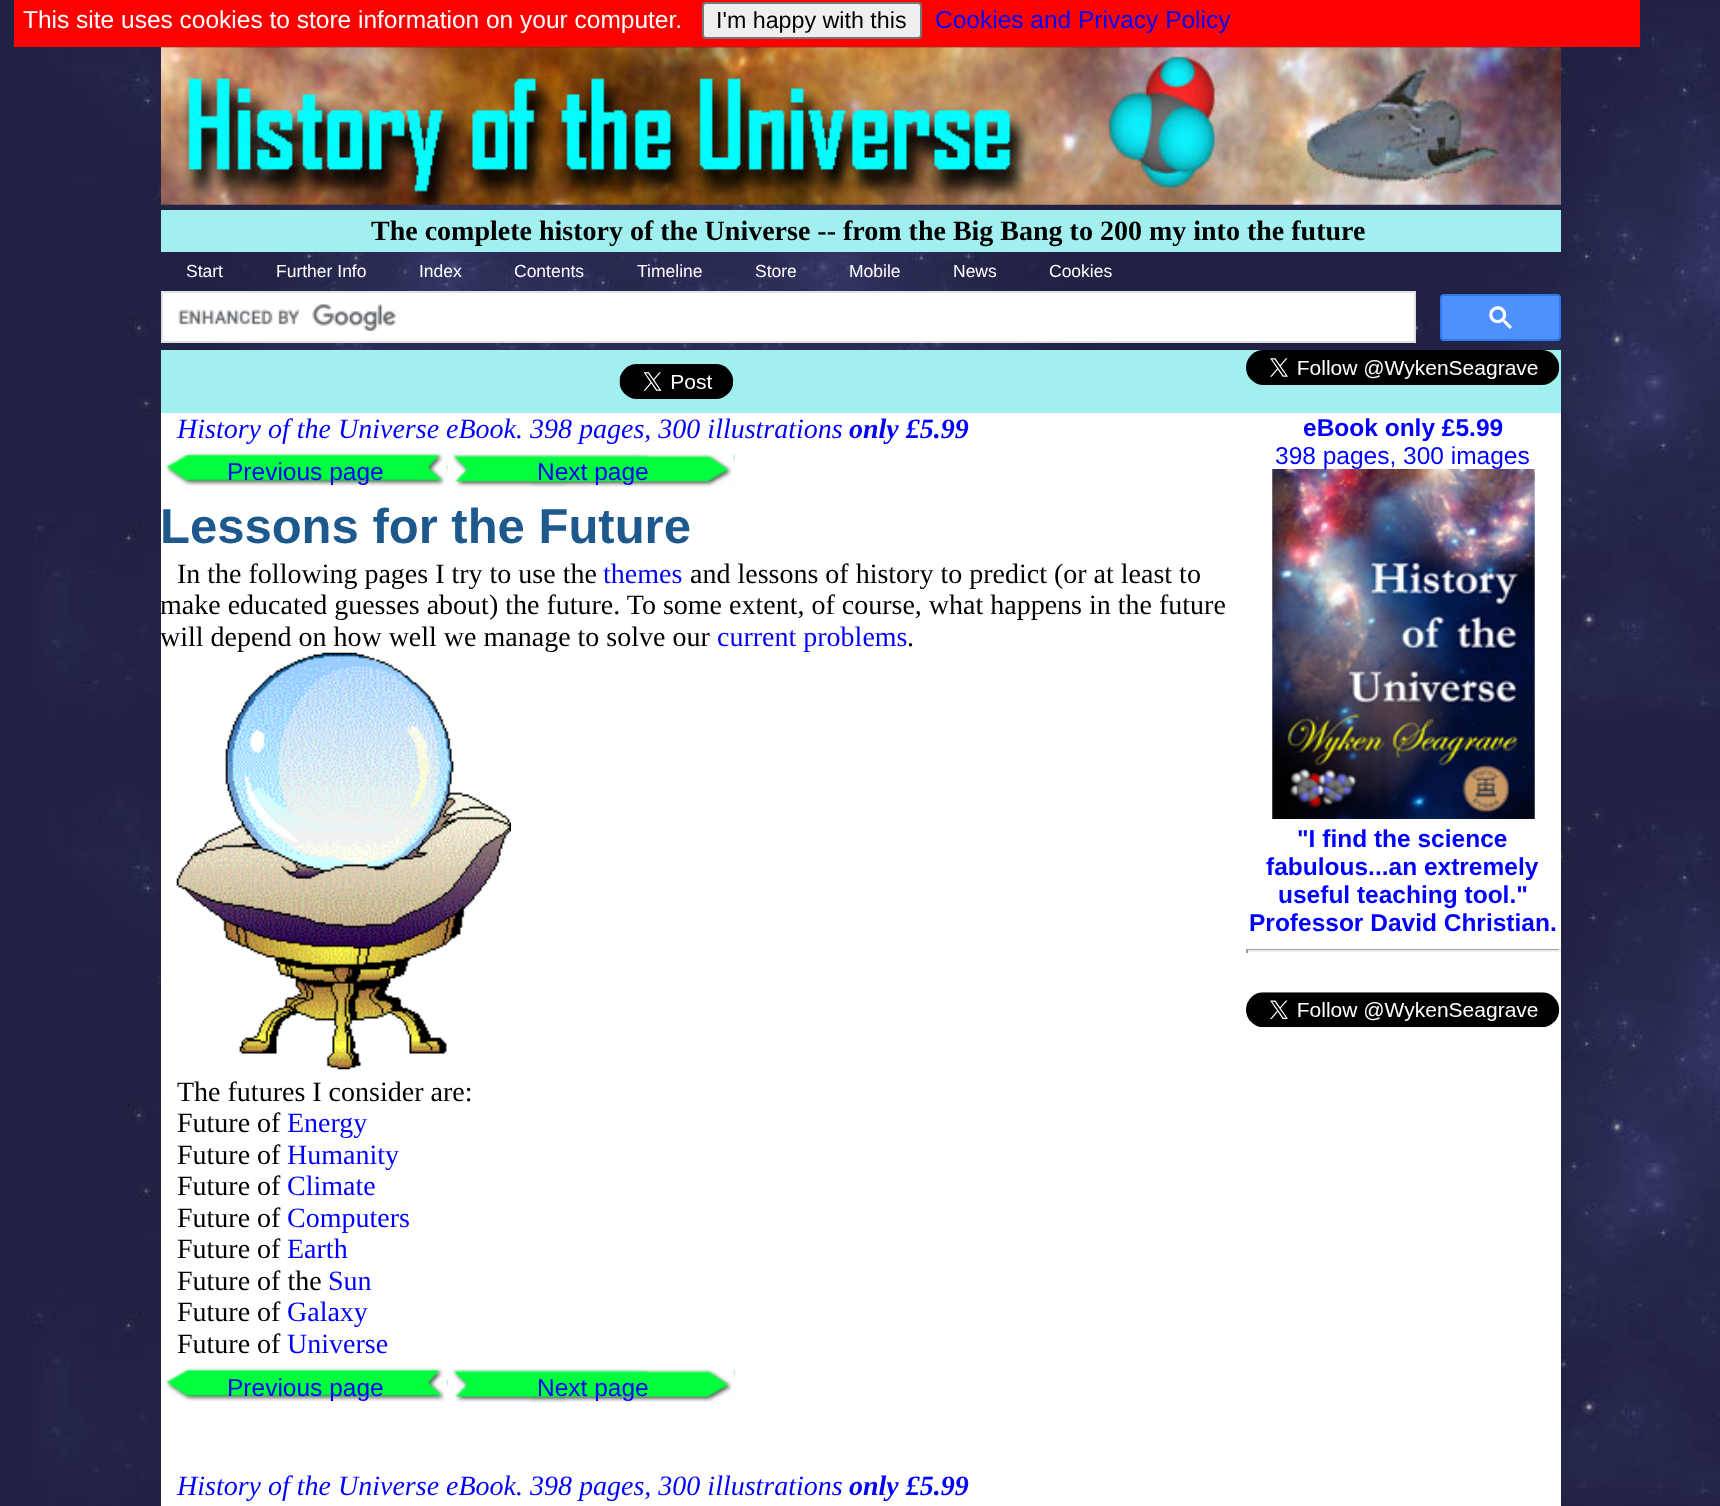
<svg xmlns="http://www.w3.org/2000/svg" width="1720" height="1506">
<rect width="100%" height="100%" fill="#fff"/>
<image x="0" y="0" width="1720" height="1506" href="media/1.png"/>
<rect x="14" width="1626" height="47" fill="#f00"/>
<text x="23" y="28" style="font-family:Liberation Sans;font-size:24.5px;fill:#fff">This site uses cookies to store information on your computer.</text>
<rect x="703" y="3" width="218" height="35" rx="3" fill="#efefef" stroke="#767676" stroke-width="2"/>
<text x="716" y="28" style="font-family:Liberation Sans;font-size:23.25px;fill:#000">I'm happy with this</text>
<text x="935" y="28" style="font-family:Liberation Sans;font-size:24.5px;fill:#00f">Cookies and Privacy Policy</text>
<image x="161" y="47" width="1400" height="158" href="media/2.png"/>
<rect x="161" y="210" width="1400" height="42" fill="#a2efef"/>
<text x="371" y="240" style="font-family:Liberation Serif;font-size:28px;font-weight:bold;fill:#000">The complete history of the Universe -- from the Big Bang to 200 my into the future</text>
<text x="186" y="277" style="font-family:Liberation Sans;font-size:17.5px;fill:#fff">Start</text>
<text x="276" y="277" style="font-family:Liberation Sans;font-size:17.5px;fill:#fff">Further Info</text>
<text x="419" y="277" style="font-family:Liberation Sans;font-size:17.5px;fill:#fff">Index</text>
<text x="514" y="277" style="font-family:Liberation Sans;font-size:17.5px;fill:#fff">Contents</text>
<text x="637" y="277" style="font-family:Liberation Sans;font-size:17.5px;fill:#fff">Timeline</text>
<text x="755" y="277" style="font-family:Liberation Sans;font-size:17.5px;fill:#fff">Store</text>
<text x="849" y="277" style="font-family:Liberation Sans;font-size:17.5px;fill:#fff">Mobile</text>
<text x="953" y="277" style="font-family:Liberation Sans;font-size:17.5px;fill:#fff">News</text>
<text x="1049" y="277" style="font-family:Liberation Sans;font-size:17.5px;fill:#fff">Cookies</text>
<rect x="162" y="292" width="1253" height="50" fill="#fff" stroke="#dfe1e5" stroke-width="2"/>
<image x="178" y="304" width="218" height="27" href="media/3.png"/>
<rect x="1441" y="295" width="119" height="45" rx="3" fill="#4d90fe" stroke="#3079ed" stroke-width="2"/>
<image x="1489" y="306" width="23" height="23" href="media/4.png"/>
<rect x="161" y="350" width="1400" height="63" fill="#a2efef"/>
<image x="619" y="364" width="115" height="35" href="media/5.png"/>
<image x="1246" y="350" width="314" height="35" href="media/6.png"/>
<rect x="161" y="413" width="1400" height="1093" fill="#fff"/>
<text x="177" y="438" style="font-family:Liberation Serif;font-size:28px;font-style:italic;fill:#00f">History of the Universe eBook. 398 pages, 300 illustrations</text>
<text x="849" y="438" style="font-family:Liberation Serif;font-size:28px;font-weight:bold;font-style:italic;fill:#00f">only £5.99</text>
<image x="164" y="452" width="284" height="35" href="media/7.png"/>
<text x="227" y="480" style="font-family:Liberation Sans;font-size:24.5px;fill:#00f">Previous page</text>
<image x="451" y="453" width="284" height="34" href="media/8.png"/>
<text x="537" y="480" style="font-family:Liberation Sans;font-size:24.5px;fill:#00f">Next page</text>
<text x="160" y="543" style="font-family:Liberation Sans;font-size:49px;font-weight:bold;fill:#1e598e">Lessons for the Future</text>
<text x="177" y="583" style="font-family:Liberation Serif;font-size:28px;fill:#000">In the following pages I try to use the</text>
<text x="603" y="583" style="font-family:Liberation Serif;font-size:28px;fill:#00f">themes</text>
<text x="690" y="583" style="font-family:Liberation Serif;font-size:28px;fill:#000">and lessons of history to predict (or at least to</text>
<text x="160" y="614" style="font-family:Liberation Serif;font-size:28px;fill:#000">make educated guesses about) the future. To some extent, of course, what happens in the future</text>
<text x="160" y="646" style="font-family:Liberation Serif;font-size:28px;fill:#000">will depend on how well we manage to solve our</text>
<text x="717" y="646" style="font-family:Liberation Serif;font-size:28px;fill:#00f">current problems</text>
<text x="907" y="646" style="font-family:Liberation Serif;font-size:28px;fill:#000">.</text>
<image x="176" y="652" width="335" height="418" href="media/9.png"/>
<text x="177" y="1101" style="font-family:Liberation Serif;font-size:28px;fill:#000">The futures I consider are:</text>
<text x="177" y="1132" style="font-family:Liberation Serif;font-size:28px;fill:#000">Future of</text>
<text x="287" y="1132" style="font-family:Liberation Serif;font-size:28px;fill:#00f">Energy</text>
<text x="177" y="1164" style="font-family:Liberation Serif;font-size:28px;fill:#000">Future of</text>
<text x="287" y="1164" style="font-family:Liberation Serif;font-size:28px;fill:#00f">Humanity</text>
<text x="177" y="1195" style="font-family:Liberation Serif;font-size:28px;fill:#000">Future of</text>
<text x="287" y="1195" style="font-family:Liberation Serif;font-size:28px;fill:#00f">Climate</text>
<text x="177" y="1227" style="font-family:Liberation Serif;font-size:28px;fill:#000">Future of</text>
<text x="287" y="1227" style="font-family:Liberation Serif;font-size:28px;fill:#00f">Computers</text>
<text x="177" y="1258" style="font-family:Liberation Serif;font-size:28px;fill:#000">Future of</text>
<text x="287" y="1258" style="font-family:Liberation Serif;font-size:28px;fill:#00f">Earth</text>
<text x="177" y="1290" style="font-family:Liberation Serif;font-size:28px;fill:#000">Future of the</text>
<text x="328" y="1290" style="font-family:Liberation Serif;font-size:28px;fill:#00f">Sun</text>
<text x="177" y="1321" style="font-family:Liberation Serif;font-size:28px;fill:#000">Future of</text>
<text x="287" y="1321" style="font-family:Liberation Serif;font-size:28px;fill:#00f">Galaxy</text>
<text x="177" y="1353" style="font-family:Liberation Serif;font-size:28px;fill:#000">Future of</text>
<text x="287" y="1353" style="font-family:Liberation Serif;font-size:28px;fill:#00f">Universe</text>
<image x="164" y="1368" width="284" height="34" href="media/10.png"/>
<text x="227" y="1396" style="font-family:Liberation Sans;font-size:24.5px;fill:#00f">Previous page</text>
<image x="451" y="1368" width="284" height="35" href="media/11.png"/>
<text x="537" y="1396" style="font-family:Liberation Sans;font-size:24.5px;fill:#00f">Next page</text>
<text x="177" y="1495" style="font-family:Liberation Serif;font-size:28px;font-style:italic;fill:#00f">History of the Universe eBook. 398 pages, 300 illustrations</text>
<text x="849" y="1495" style="font-family:Liberation Serif;font-size:28px;font-weight:bold;font-style:italic;fill:#00f">only £5.99</text>
<text x="1303" y="436" style="font-family:Liberation Sans;font-size:24.5px;font-weight:bold;fill:#00f">eBook only £5.99</text>
<text x="1275" y="464" style="font-family:Liberation Sans;font-size:24.5px;fill:#00f">398 pages, 300 images</text>
<image x="1272" y="469" width="263" height="350" href="media/12.png"/>
<text x="1297" y="847" style="font-family:Liberation Sans;font-size:24.5px;font-weight:bold;fill:#00f">"I find the science</text>
<text x="1266" y="875" style="font-family:Liberation Sans;font-size:24.5px;font-weight:bold;fill:#00f">fabulous...an extremely</text>
<text x="1278" y="903" style="font-family:Liberation Sans;font-size:24.5px;font-weight:bold;fill:#00f">useful teaching tool."</text>
<text x="1249" y="931" style="font-family:Liberation Sans;font-size:24.5px;font-weight:bold;fill:#00f">Professor David Christian.</text>
<rect x="1246" y="949" width="315" height="1" fill="#9f9f9f"/>
<rect x="1559" y="949" width="2" height="4" fill="#eee"/>
<rect x="1246" y="950" width="315" height="2" fill="#eee"/>
<rect x="1246" y="949" width="2" height="4" fill="#9f9f9f"/>
<image x="1246" y="992" width="314" height="36" href="media/13.png"/>
</svg>
